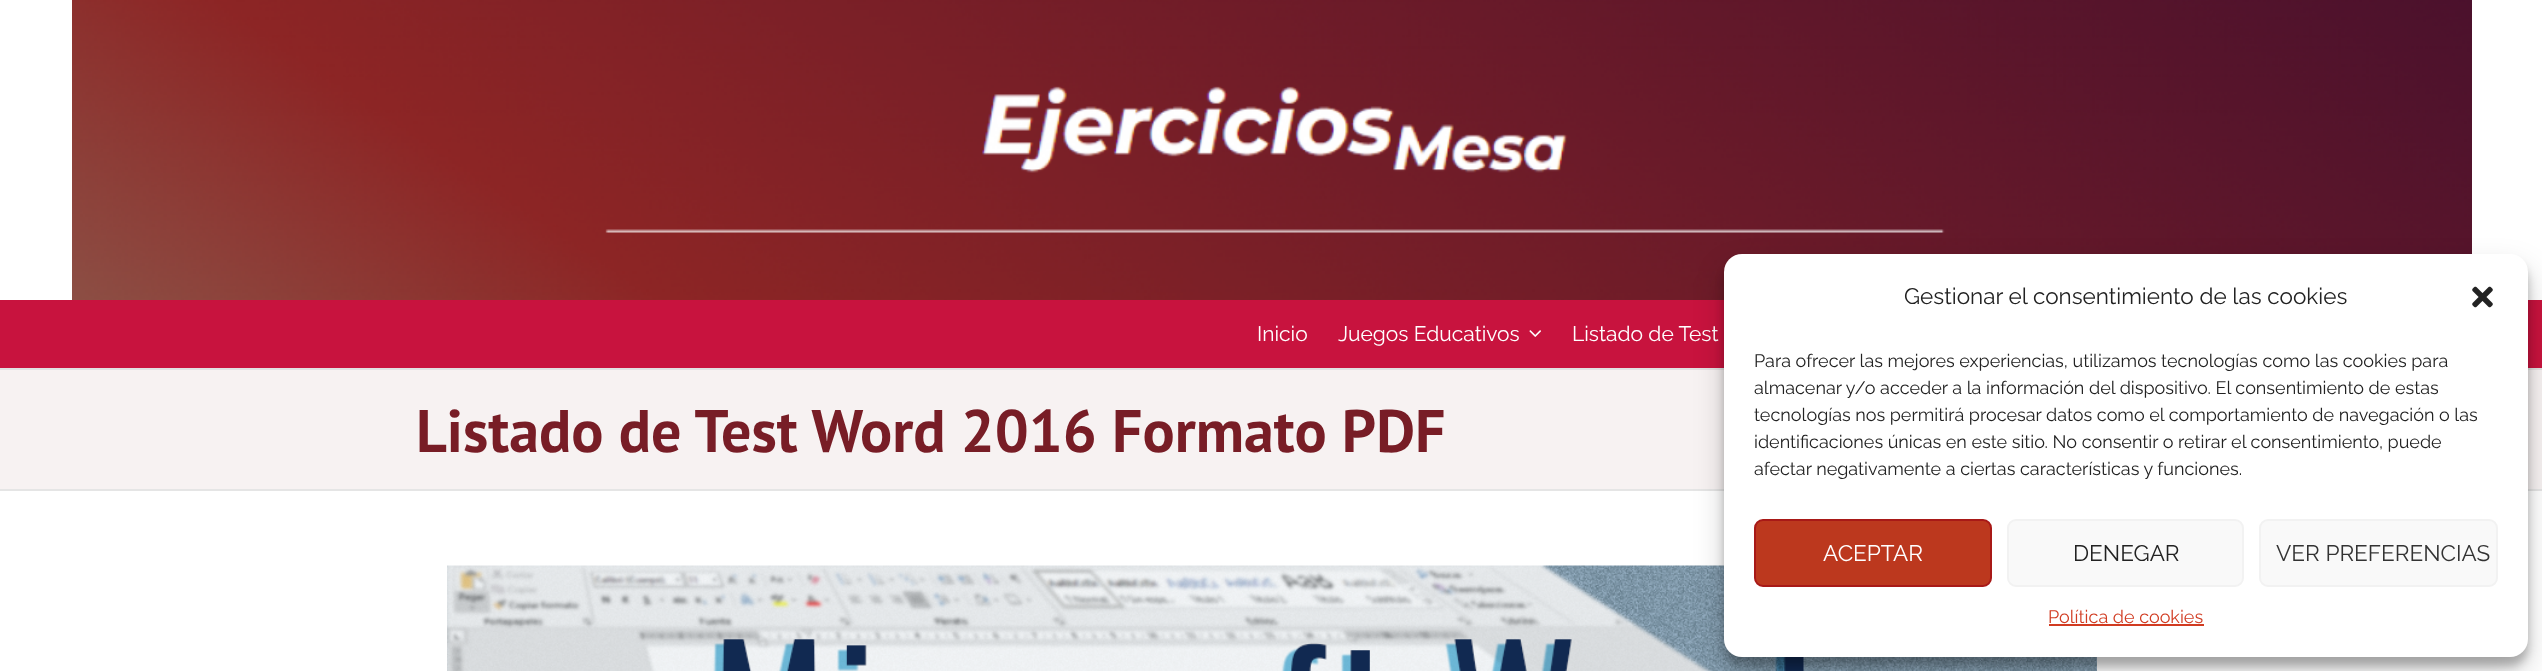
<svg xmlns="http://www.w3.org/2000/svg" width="2542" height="671">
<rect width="100%" height="100%" fill="#fff"/>
<image x="72" y="0" width="2400" height="300" href="media/1.png"/>
<rect y="300" width="2542" height="68" fill="#c8133e"/>
<rect y="368" width="2542" height="2" fill="#e1e1e1"/>
<text x="1257" y="341" style="font-family:Raleway;font-size:21px;fill:#fff">Inicio</text>
<text x="1338" y="341" style="font-family:Raleway;font-size:21px;fill:#fff">Juegos Educativos</text>
<image x="1529" y="330" width="12" height="7" href="media/2.png"/>
<text x="1572" y="341" style="font-family:Raleway;font-size:21px;fill:#fff">Listado de Test</text>
<rect y="370" width="2542" height="119" fill="#f7f2f2"/>
<rect y="489" width="2542" height="2" fill="#e5e5e5"/>
<text x="416" y="452" style="font-family:PT Sans;font-size:60px;font-weight:bold;fill:#781d26">Listado de Test Word 2016 Formato PDF</text>
<image x="447" y="565" width="1650" height="106" href="media/3.png"/>
<rect x="1724" y="263" width="804" height="403" rx="18" fill="#0000003b" filter="blur(4.5px)"/>
<rect x="1724" y="269" width="804" height="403" rx="18" fill="#00000030" filter="blur(15px)"/>
<rect x="1724" y="254" width="804" height="403" rx="18" fill="#fff"/>
<text x="1904" y="304" style="font-family:Raleway;font-size:22.5px;fill:#222">Gestionar el consentimiento de las cookies</text>
<image x="2472" y="286" width="21" height="22" href="media/4.png"/>
<text x="1754" y="367" style="font-family:Raleway;font-size:18px;fill:#222">Para ofrecer las mejores experiencias, utilizamos tecnologías como las cookies para</text>
<text x="1754" y="394" style="font-family:Raleway;font-size:18px;fill:#222">almacenar y/o acceder a la información del dispositivo. El consentimiento de estas</text>
<text x="1754" y="421" style="font-family:Raleway;font-size:18px;fill:#222">tecnologías nos permitirá procesar datos como el comportamiento de navegación o las</text>
<text x="1754" y="448" style="font-family:Raleway;font-size:18px;fill:#222">identificaciones únicas en este sitio. No consentir o retirar el consentimiento, puede</text>
<text x="1754" y="475" style="font-family:Raleway;font-size:18px;fill:#222">afectar negativamente a ciertas características y funciones.</text>
<rect x="1755" y="520" width="236" height="66" rx="8" fill="#bc381e" stroke="#a81917" stroke-width="2"/>
<text x="1823" y="561" style="font-family:Raleway;font-size:22.5px;fill:#fff">ACEPTAR</text>
<rect x="2008" y="520" width="235" height="66" rx="8" fill="#f9f9f9" stroke="#f2f2f2" stroke-width="2"/>
<text x="2073" y="561" style="font-family:Raleway;font-size:22.5px;fill:#222">DENEGAR</text>
<rect x="2260" y="520" width="237" height="66" rx="8" fill="#f9f9f9" stroke="#f2f2f2" stroke-width="2"/>
<text x="2276" y="561" style="font-family:Raleway;font-size:22.5px;fill:#333">VER PREFERENCIAS</text>
<text x="2048" y="623" style="font-family:Raleway;font-size:18px;fill:#d13b21">Política de cookies</text>
<rect x="2049" y="624" width="155" height="2" fill="#d13b21"/>
</svg>
